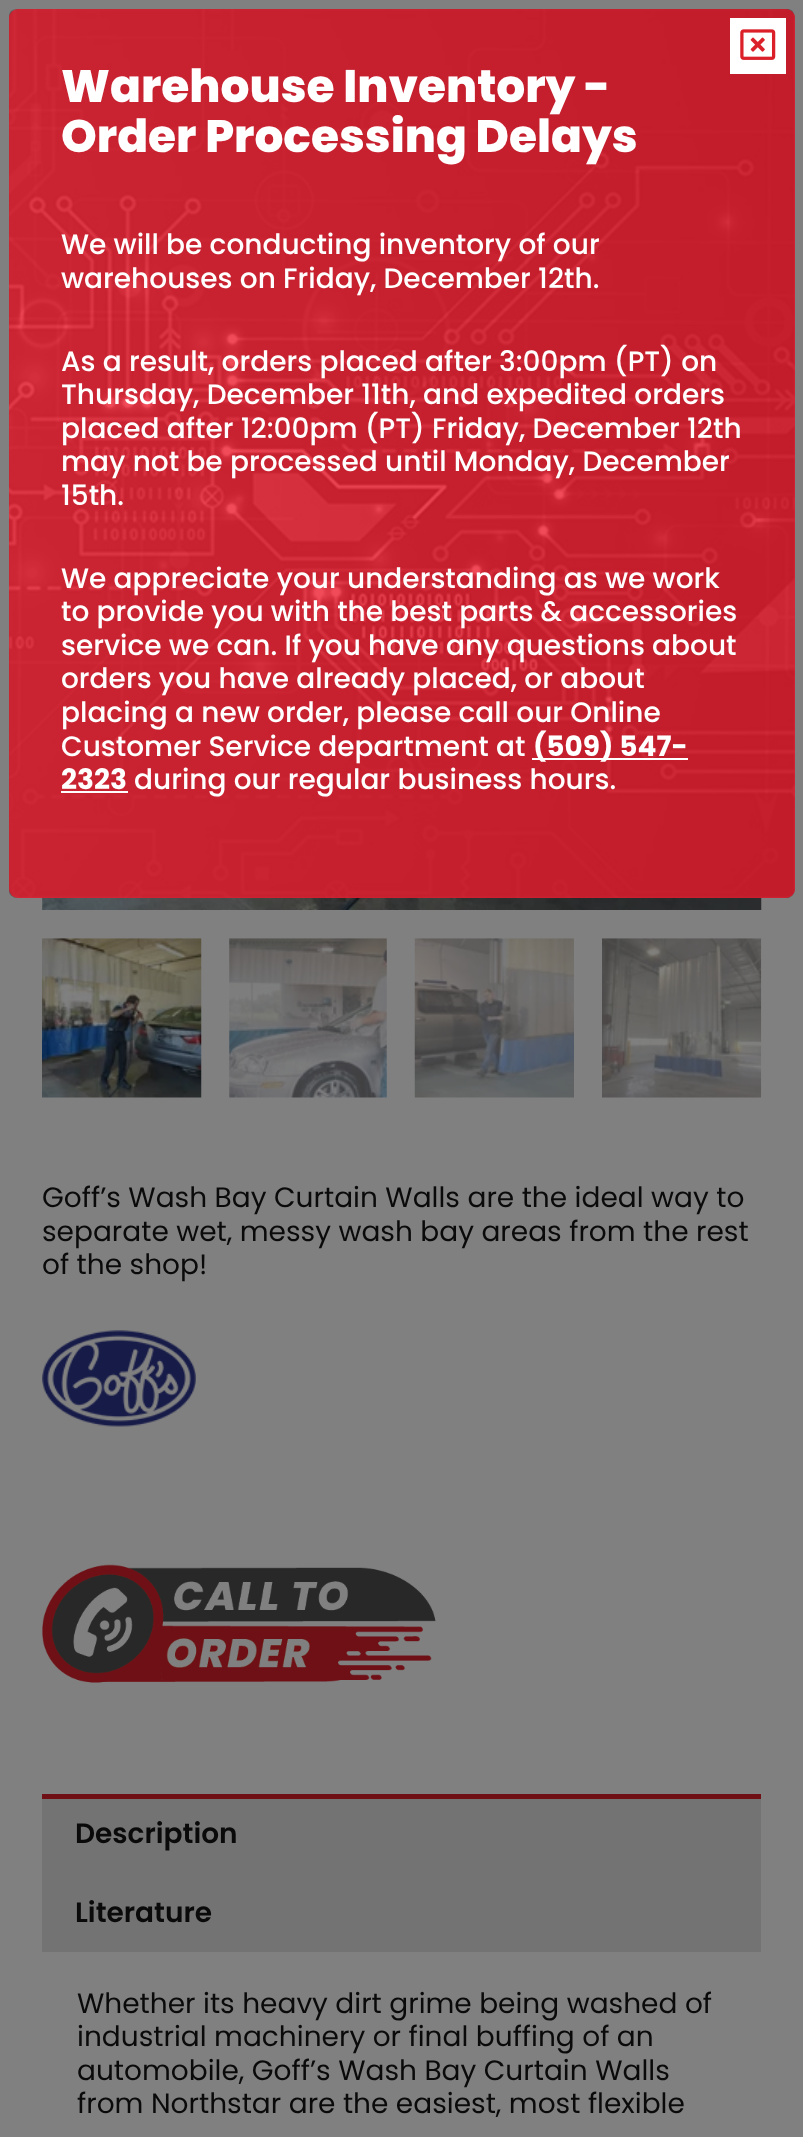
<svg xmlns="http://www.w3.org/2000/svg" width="803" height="2137">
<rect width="100%" height="100%" fill="#808080"/>
<image x="42" y="897" width="720" height="13" href="media/3.png"/>
<rect x="9" y="9" width="786" height="889" rx="9" fill="#db202a63"/>
<image x="9" y="9" width="786" height="889" href="media/2.png"/>
<rect x="9" y="9" width="786" height="889" rx="9" fill="#ed1b2ec9"/>
<rect x="730" y="18" width="56" height="56" fill="#fff"/>
<image x="740" y="29" width="36" height="31" href="media/1.png"/>
<text x="61" y="102" style="font-family:Poppins;font-size:45.5px;font-weight:800;fill:#fff">Warehouse Inventory -</text>
<text x="61" y="152" style="font-family:Poppins;font-size:45.5px;font-weight:800;fill:#fff">Order Processing Delays</text>
<text x="61" y="254" style="font-family:Poppins;font-size:28px;font-weight:500;fill:#fff">We will be conducting inventory of our</text>
<text x="61" y="288" style="font-family:Poppins;font-size:28px;font-weight:500;fill:#fff">warehouses on Friday, December 12th.</text>
<text x="61" y="371" style="font-family:Poppins;font-size:28px;font-weight:500;fill:#fff">As a result, orders placed after 3:00pm (PT) on</text>
<text x="61" y="404" style="font-family:Poppins;font-size:28px;font-weight:500;fill:#fff">Thursday, December 11th, and expedited orders</text>
<text x="61" y="438" style="font-family:Poppins;font-size:28px;font-weight:500;fill:#fff">placed after 12:00pm (PT) Friday, December 12th</text>
<text x="61" y="471" style="font-family:Poppins;font-size:28px;font-weight:500;fill:#fff">may not be processed until Monday, December</text>
<text x="61" y="505" style="font-family:Poppins;font-size:28px;font-weight:500;fill:#fff">15th.</text>
<text x="61" y="588" style="font-family:Poppins;font-size:28px;font-weight:500;fill:#fff">We appreciate your understanding as we work</text>
<text x="61" y="621" style="font-family:Poppins;font-size:28px;font-weight:500;fill:#fff">to provide you with the best parts &amp; accessories</text>
<text x="61" y="655" style="font-family:Poppins;font-size:28px;font-weight:500;fill:#fff">service we can. If you have any questions about</text>
<text x="61" y="688" style="font-family:Poppins;font-size:28px;font-weight:500;fill:#fff">orders you have already placed, or about</text>
<text x="61" y="722" style="font-family:Poppins;font-size:28px;font-weight:500;fill:#fff">placing a new order, please call our Online</text>
<text x="61" y="756" style="font-family:Poppins;font-size:28px;font-weight:500;fill:#fff">Customer Service department at</text>
<rect x="532" y="758" width="156" height="2" fill="#fff"/>
<text x="533" y="756" style="font-family:Poppins;font-size:28px;font-weight:bold;fill:#fff">(509) 547-</text>
<text x="61" y="789" style="font-family:Poppins;font-size:28px;font-weight:bold;fill:#fff">2323</text>
<rect x="61" y="791" width="67" height="2" fill="#fff"/>
<text x="134" y="789" style="font-family:Poppins;font-size:28px;font-weight:500;fill:#fff">during our regular business hours.</text>
<image x="42" y="938" width="160" height="160" href="media/4.png"/>
<image x="229" y="938" width="158" height="160" href="media/5.png"/>
<image x="414" y="938" width="160" height="160" href="media/6.png"/>
<image x="602" y="938" width="160" height="160" href="media/7.png"/>
<text x="42" y="1207" style="font-family:Poppins;font-size:28px;fill:#0a0a0a">Goff’s Wash Bay Curtain Walls are the ideal way to</text>
<text x="42" y="1241" style="font-family:Poppins;font-size:28px;fill:#0a0a0a">separate wet, messy wash bay areas from the rest</text>
<text x="42" y="1274" style="font-family:Poppins;font-size:28px;fill:#0a0a0a">of the shop!</text>
<image x="42" y="1330" width="154" height="97" href="media/8.png"/>
<image x="42" y="1564" width="394" height="119" href="media/9.png"/>
<rect x="42" y="1794" width="719" height="5" fill="#6e1015"/>
<rect x="42" y="1799" width="719" height="153" fill="#737373"/>
<text x="75" y="1843" style="font-family:Poppins;font-size:28px;font-weight:600;fill:#0a0a0a">Description</text>
<text x="75" y="1922" style="font-family:Poppins;font-size:28px;font-weight:600;fill:#0a0a0a">Literature</text>
<text x="77" y="2013" style="font-family:Poppins;font-size:28px;fill:#0a0a0a">Whether its heavy dirt grime being washed of</text>
<text x="77" y="2046" style="font-family:Poppins;font-size:28px;fill:#0a0a0a">industrial machinery or final buffing of an</text>
<text x="77" y="2080" style="font-family:Poppins;font-size:28px;fill:#0a0a0a">automobile, Goff’s Wash Bay Curtain Walls</text>
<text x="77" y="2113" style="font-family:Poppins;font-size:28px;fill:#0a0a0a">from Northstar are the easiest, most flexible</text>
</svg>
